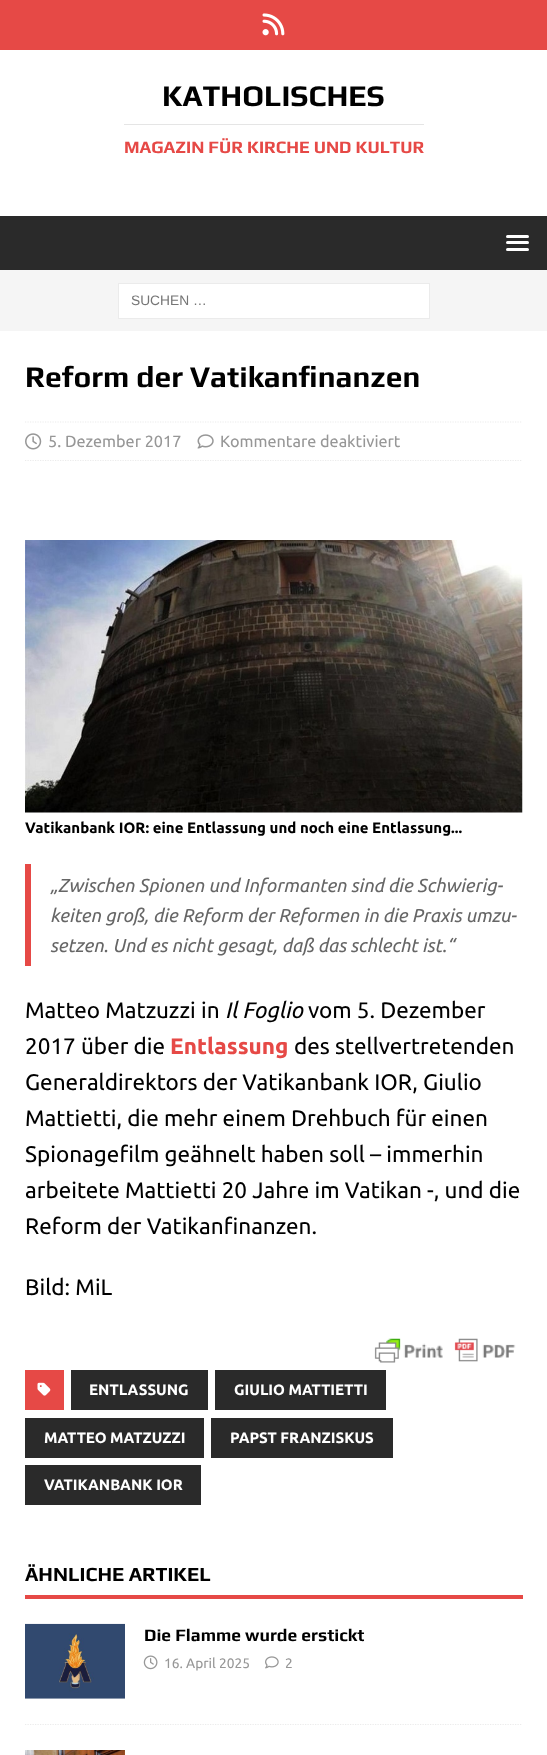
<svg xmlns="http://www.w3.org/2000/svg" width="547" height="1755">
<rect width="100%" height="100%" fill="#e64946"/>
<image x="262" y="13" width="23" height="23" href="media/1.png"/>
<rect y="50" width="547" height="166" fill="#fff"/>
<text x="162" y="106" style="font-family:Play;font-size:30px;font-weight:bold;fill:#000">KATHOLISCHES</text>
<rect x="124" y="124" width="300" height="1" fill="#e5e5e5"/>
<text x="124" y="153" style="font-family:Play;font-size:17.5px;font-weight:bold;fill:#e64946">MAGAZIN FÜR KIRCHE UND KULTUR</text>
<rect y="216" width="547" height="54" fill="#2a2a2a"/>
<rect x="506" y="235" width="23" height="3" rx="1.5" fill="#fff"/>
<rect x="506" y="241" width="23" height="3" rx="1.5" fill="#fff"/>
<rect x="506" y="248" width="23" height="3" rx="1.5" fill="#fff"/>
<rect y="270" width="547" height="61" fill="#f5f5f5"/>
<rect x="118.5" y="283.5" width="311" height="35" fill="#fff" stroke="#ebebeb"/>
<text x="131" y="305" style="font-family:Liberation Sans;font-size:13.75px;fill:#757575">SUCHEN …</text>
<rect y="331" width="547" height="1424" fill="#fff"/>
<text x="25" y="387" style="font-family:Play;font-size:30px;font-weight:bold;fill:#000">Reform der Vatikanfinanzen</text>
<path d="M25 422h497.5" fill="none" stroke="#ebebeb" stroke-width="1.2" stroke-dasharray="1.25 1.25"/>
<path d="M25 460.5h497.5" fill="none" stroke="#ebebeb" stroke-width="1.2" stroke-dasharray="1.25 1.25"/>
<image x="25" y="433" width="17" height="17" href="media/2.png"/>
<text x="48" y="447" style="font-family:Ubuntu;font-size:16.25px;fill:#979797">5. Dezember 2017</text>
<image x="197" y="434" width="17" height="15" href="media/3.png"/>
<text x="220" y="447" style="font-family:Ubuntu;font-size:16.25px;fill:#979797">Kommentare deaktiviert</text>
<image x="25" y="540" width="498" height="273" href="media/4.png"/>
<text x="25" y="833" style="font-family:Ubuntu;font-size:15px;font-weight:bold;fill:#000">Vatikanbank IOR: eine Entlassung und noch eine Entlassung...</text>
<rect x="25" y="864" width="6" height="102" fill="#e64946"/>
<text x="50" y="892" style="font-family:Ubuntu;font-size:18.75px;font-style:italic;fill:#666">„Zwischen Spionen und Informanten sind die Schwierig-</text>
<text x="50" y="922" style="font-family:Ubuntu;font-size:18.75px;font-style:italic;fill:#666">keiten groß, die Reform der Reformen in die Praxis umzu-</text>
<text x="50" y="952" style="font-family:Ubuntu;font-size:18.75px;font-style:italic;fill:#666">setzen. Und es nicht gesagt, daß das schlecht ist.“</text>
<text x="25" y="1018" style="font-family:Ubuntu;font-size:22.5px;fill:#000">Matteo Matzuzzi in</text>
<text x="225" y="1018" style="font-family:Ubuntu;font-size:22.5px;font-style:italic;fill:#000">Il Foglio</text>
<text x="308" y="1018" style="font-family:Ubuntu;font-size:22.5px;fill:#000">vom 5. Dezember</text>
<text x="25" y="1054" style="font-family:Ubuntu;font-size:22.5px;fill:#000">2017 über die</text>
<text x="170" y="1054" style="font-family:Ubuntu;font-size:22.5px;font-weight:bold;fill:#e64946">Entlassung</text>
<text x="294" y="1054" style="font-family:Ubuntu;font-size:22.5px;fill:#000">des stellvertretenden</text>
<text x="25" y="1090" style="font-family:Ubuntu;font-size:22.5px;fill:#000">Generaldirektors der Vatikanbank IOR, Giulio</text>
<text x="25" y="1126" style="font-family:Ubuntu;font-size:22.5px;fill:#000">Mattietti, die mehr einem Drehbuch für einen</text>
<text x="25" y="1162" style="font-family:Ubuntu;font-size:22.5px;fill:#000">Spionagefilm geähnelt haben soll – immerhin</text>
<text x="25" y="1198" style="font-family:Ubuntu;font-size:22.5px;fill:#000">arbeitete Mattietti 20 Jahre im Vatikan -, und die</text>
<text x="25" y="1234" style="font-family:Ubuntu;font-size:22.5px;fill:#000">Reform der Vatikanfinanzen.</text>
<text x="25" y="1295" style="font-family:Ubuntu;font-size:22.5px;fill:#000">Bild: MiL</text>
<image x="374" y="1338" width="142" height="25" href="media/5.png"/>
<rect x="25" y="1370" width="39" height="40" fill="#e64946"/>
<image x="37" y="1382" width="14" height="14" href="media/6.png"/>
<rect x="71" y="1370" width="137" height="40" fill="#2a2a2a"/>
<text x="89" y="1395" style="font-family:Ubuntu;font-size:15px;font-weight:bold;fill:#fff">ENTLASSUNG</text>
<rect x="215" y="1370" width="171" height="40" fill="#2a2a2a"/>
<text x="234" y="1395" style="font-family:Ubuntu;font-size:15px;font-weight:bold;fill:#fff">GIULIO MATTIETTI</text>
<rect x="25" y="1418" width="179" height="40" fill="#2a2a2a"/>
<text x="44" y="1443" style="font-family:Ubuntu;font-size:15px;font-weight:bold;fill:#fff">MATTEO MATZUZZI</text>
<rect x="211" y="1418" width="182" height="40" fill="#2a2a2a"/>
<text x="230" y="1443" style="font-family:Ubuntu;font-size:15px;font-weight:bold;fill:#fff">PAPST FRANZISKUS</text>
<rect x="25" y="1465" width="176" height="40" fill="#2a2a2a"/>
<text x="44" y="1490" style="font-family:Ubuntu;font-size:15px;font-weight:bold;fill:#fff">VATIKANBANK IOR</text>
<rect x="25" y="1595" width="498" height="4" fill="#e64946"/>
<text x="25" y="1581" style="font-family:Play;font-size:20px;font-weight:bold;fill:#000">ÄHNLICHE ARTIKEL</text>
<path d="M25 1724.5h497.5" fill="none" stroke="#ebebeb" stroke-width="1.2" stroke-dasharray="1.25 1.25"/>
<image x="25" y="1623" width="100" height="76" href="media/7.png"/>
<text x="144" y="1641" style="font-family:Play;font-size:17.5px;font-weight:bold;fill:#000">Die Flamme wurde erstickt</text>
<image x="143" y="1655" width="15" height="15" href="media/8.png"/>
<text x="164" y="1668" style="font-family:Ubuntu;font-size:13.75px;fill:#979797">16. April 2025</text>
<image x="265" y="1656" width="14" height="13" href="media/9.png"/>
<text x="285" y="1668" style="font-family:Ubuntu;font-size:13.75px;fill:#979797">2</text>
<image x="25" y="1750" width="100" height="5" href="media/10.png"/>
</svg>
